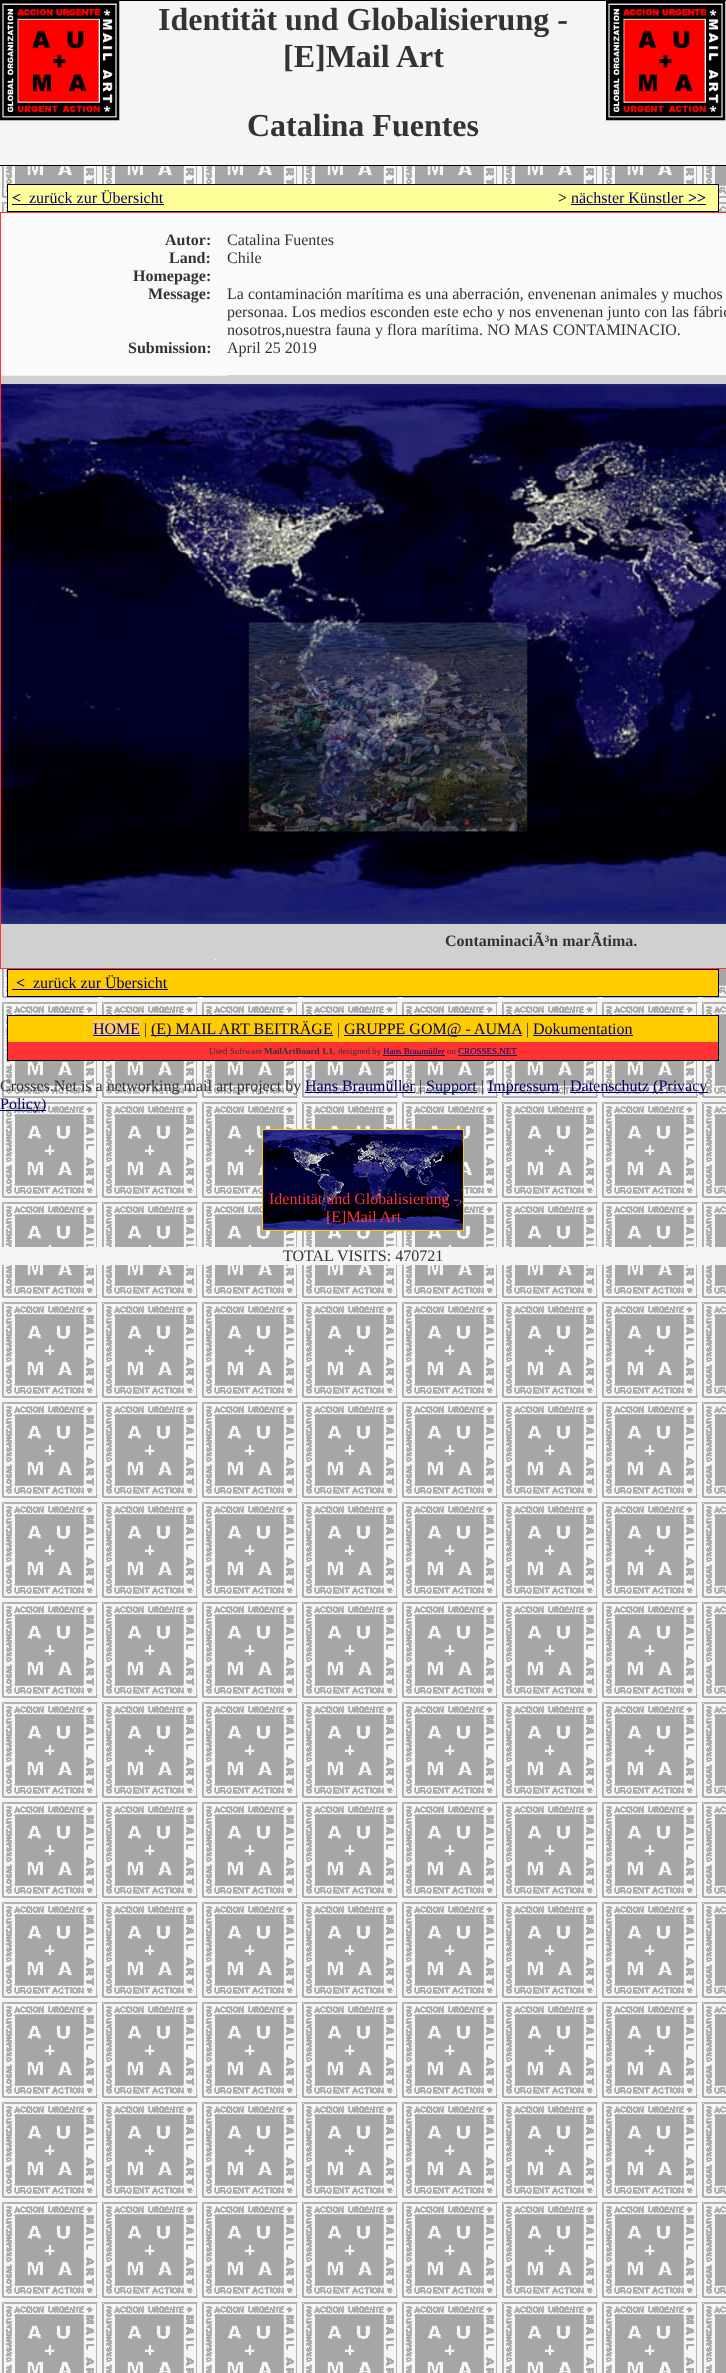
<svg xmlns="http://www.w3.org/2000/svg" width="726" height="2373">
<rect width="100%" height="100%" fill="#f5f5f5"/>
<image x="2" y="166" width="724" height="2207" href="media/1.png"/>
<rect width="726" height="1" fill="#000"/>
<rect y="165" width="726" height="1" fill="#000"/>
<image x="0" y="1" width="120" height="120" href="media/2.png"/>
<text x="158" y="30" style="font-family:Liberation Serif;font-size:32px;font-weight:bold;fill:#333">Identität und Globalisierung -</text>
<text x="283" y="67" style="font-family:Liberation Serif;font-size:32px;font-weight:bold;fill:#333">[E]Mail Art</text>
<text x="247" y="136" style="font-family:Liberation Serif;font-size:32px;font-weight:bold;fill:#333">Catalina Fuentes</text>
<image x="606" y="1" width="120" height="120" href="media/2.png"/>
<rect x="7.5" y="184.5" width="711" height="27" fill="none" stroke="#000"/>
<rect x="8" y="185" width="710" height="26" fill="#ff9"/>
<text x="12" y="203" style="font-family:Liberation Serif;font-size:16px;font-weight:bold;fill:#006">&lt;</text>
<rect x="12" y="204" width="152" height="1" fill="#006"/>
<text x="29" y="203" style="font-family:Liberation Serif;font-size:16px;fill:#006">zurück zur Übersicht</text>
<text x="558" y="203" style="font-family:Liberation Serif;font-size:16px;font-weight:bold;fill:#333">&gt;</text>
<text x="571" y="203" style="font-family:Liberation Serif;font-size:16px;fill:#006">nächster Künstler</text>
<rect x="571" y="204" width="135" height="1" fill="#006"/>
<text x="688" y="203" style="font-family:Liberation Serif;font-size:16px;font-weight:bold;fill:#006">&gt;&gt;</text>
<rect x="1" y="375" width="725" height="593" fill="#d0d0d0"/>
<rect x="0.5" y="212.5" width="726" height="756" fill="none" stroke="#f33"/>
<rect x="1" y="213" width="725" height="162" fill="#fafafa"/>
<rect x="215" y="222" width="1" height="1" fill="#fff"/>
<text x="165" y="245" style="font-family:Liberation Serif;font-size:16px;font-weight:bold;fill:#333">Autor:</text>
<text x="169" y="263" style="font-family:Liberation Serif;font-size:16px;font-weight:bold;fill:#333">Land:</text>
<text x="133" y="281" style="font-family:Liberation Serif;font-size:16px;font-weight:bold;fill:#333">Homepage:</text>
<text x="148" y="299" style="font-family:Liberation Serif;font-size:16px;font-weight:bold;fill:#333">Message:</text>
<rect x="216" y="285" width="1" height="1" fill="#fff"/>
<text x="227" y="245" style="font-family:Liberation Serif;font-size:16px;fill:#333">Catalina Fuentes</text>
<text x="227" y="263" style="font-family:Liberation Serif;font-size:16px;fill:#333">Chile</text>
<text x="227" y="299" style="font-family:Liberation Serif;font-size:16px;fill:#333">La contaminación marítima es una aberración, envenenan animales y muchos</text>
<text x="227" y="317" style="font-family:Liberation Serif;font-size:16px;fill:#333">personaa. Los medios esconden este echo y nos envenenan junto con las fábric</text>
<text x="227" y="335" style="font-family:Liberation Serif;font-size:16px;fill:#333">nosotros,nuestra fauna y flora marítima. NO MAS CONTAMINACIO.</text>
<rect x="215" y="303" width="1" height="1" fill="#fff"/>
<text x="128" y="353" style="font-family:Liberation Serif;font-size:16px;font-weight:bold;fill:#333">Submission:</text>
<rect x="216" y="348" width="1" height="1" fill="#fff"/>
<text x="227" y="353" style="font-family:Liberation Serif;font-size:16px;fill:#333">April 25 2019</text>
<rect x="216" y="366" width="1" height="1" fill="#fff"/>
<rect x="1" y="375" width="226" height="1" fill="#f0f0f0"/>
<rect x="1" y="375" width="1" height="1" fill="#fff"/>
<rect x="215" y="375" width="1" height="1" fill="#fff"/>
<image x="1" y="384" width="725" height="540" href="media/3.png"/>
<text x="445" y="946" style="font-family:Liberation Serif;font-size:16px;font-weight:bold;fill:#333">ContaminaciÃ³n marÃtima.</text>
<rect x="215" y="959" width="1" height="1" fill="#fff"/>
<rect x="7.5" y="969.5" width="711" height="27" fill="none" stroke="#000"/>
<rect x="8" y="970" width="710" height="26" fill="#fc0"/>
<text x="16" y="988" style="font-family:Liberation Serif;font-size:16px;font-weight:bold;fill:#006">&lt;</text>
<rect x="12" y="989" width="156" height="1" fill="#006"/>
<text x="33" y="988" style="font-family:Liberation Serif;font-size:16px;fill:#006">zurück zur Übersicht</text>
<rect x="7.5" y="1015.5" width="711" height="45" fill="none" stroke="#000"/>
<rect x="8" y="1016" width="710" height="26" fill="#fc0"/>
<rect x="93" y="1020" width="47" height="17" fill="#fc6"/>
<text x="93" y="1034" style="font-family:Liberation Serif;font-size:16px;fill:#006">HOME</text>
<rect x="93" y="1035" width="47" height="1" fill="#006"/>
<text x="144" y="1034" style="font-family:Liberation Serif;font-size:16px;fill:#333">|</text>
<rect x="151" y="1035" width="182" height="1" fill="#006"/>
<text x="151" y="1034" style="font-family:Liberation Serif;font-size:16px;fill:#006">(E) MAIL ART BEITRÄGE</text>
<text x="337" y="1034" style="font-family:Liberation Serif;font-size:16px;fill:#333">|</text>
<rect x="344" y="1035" width="178" height="1" fill="#006"/>
<text x="344" y="1034" style="font-family:Liberation Serif;font-size:16px;fill:#006">GRUPPE GOM@ - AUMA</text>
<text x="526" y="1034" style="font-family:Liberation Serif;font-size:16px;fill:#333">|</text>
<text x="533" y="1034" style="font-family:Liberation Serif;font-size:16px;fill:#006">Dokumentation</text>
<rect x="533" y="1035" width="100" height="1" fill="#006"/>
<rect x="8" y="1042" width="710" height="18" fill="#f33"/>
<text x="209" y="1054" style="font-family:Liberation Serif;font-size:9px;fill:#333">Used Software</text>
<text x="264" y="1054" style="font-family:Liberation Serif;font-size:9px;font-weight:bold;fill:#333">MailArtBoard 1.1.</text>
<text x="338" y="1054" style="font-family:Liberation Serif;font-size:9px;fill:#333">designed by</text>
<text x="383" y="1054" style="font-family:Liberation Serif;font-size:9px;fill:#006">Hans Braumüller</text>
<rect x="383" y="1055" width="62" height="1" fill="#006"/>
<text x="447" y="1054" style="font-family:Liberation Serif;font-size:9px;fill:#333">on</text>
<text x="458" y="1054" style="font-family:Liberation Serif;font-size:9px;fill:#006">CROSSES.NET</text>
<rect x="458" y="1055" width="59" height="1" fill="#006"/>
<text x="0" y="1091" style="font-family:Liberation Serif;font-size:16px;fill:#333">Crosses.Net is a networking mail art project by</text>
<text x="305" y="1091" style="font-family:Liberation Serif;font-size:16px;fill:#006">Hans Braumüller</text>
<rect x="305" y="1092" width="110" height="1" fill="#006"/>
<text x="419" y="1091" style="font-family:Liberation Serif;font-size:16px;fill:#333">|</text>
<rect x="426" y="1092" width="51" height="1" fill="#006"/>
<text x="426" y="1091" style="font-family:Liberation Serif;font-size:16px;fill:#006">Support</text>
<text x="481" y="1091" style="font-family:Liberation Serif;font-size:16px;fill:#333">|</text>
<rect x="488" y="1092" width="71" height="1" fill="#006"/>
<text x="488" y="1091" style="font-family:Liberation Serif;font-size:16px;fill:#006">Impressum</text>
<text x="563" y="1091" style="font-family:Liberation Serif;font-size:16px;fill:#333">|</text>
<rect x="570" y="1092" width="138" height="1" fill="#006"/>
<text x="570" y="1091" style="font-family:Liberation Serif;font-size:16px;fill:#006">Datenschutz (Privacy</text>
<rect y="1110" width="46" height="1" fill="#006"/>
<text x="0" y="1109" style="font-family:Liberation Serif;font-size:16px;fill:#006">Policy)</text>
<image x="263" y="1130" width="200" height="100" href="media/4.png"/>
<rect x="262.5" y="1129.5" width="201" height="101" fill="none" stroke="#fc0"/>
<text x="269" y="1204" style="font-family:Liberation Serif;font-size:16px;fill:#f33">Identität und Globalisierung -</text>
<text x="326" y="1222" style="font-family:Liberation Serif;font-size:16px;fill:#f33">[E]Mail Art</text>
<rect x="2" y="1247" width="724" height="18" fill="#f5f5f5"/>
<text x="283" y="1261" style="font-family:Liberation Serif;font-size:16px;fill:#333">TOTAL VISITS: 470721</text>
</svg>
